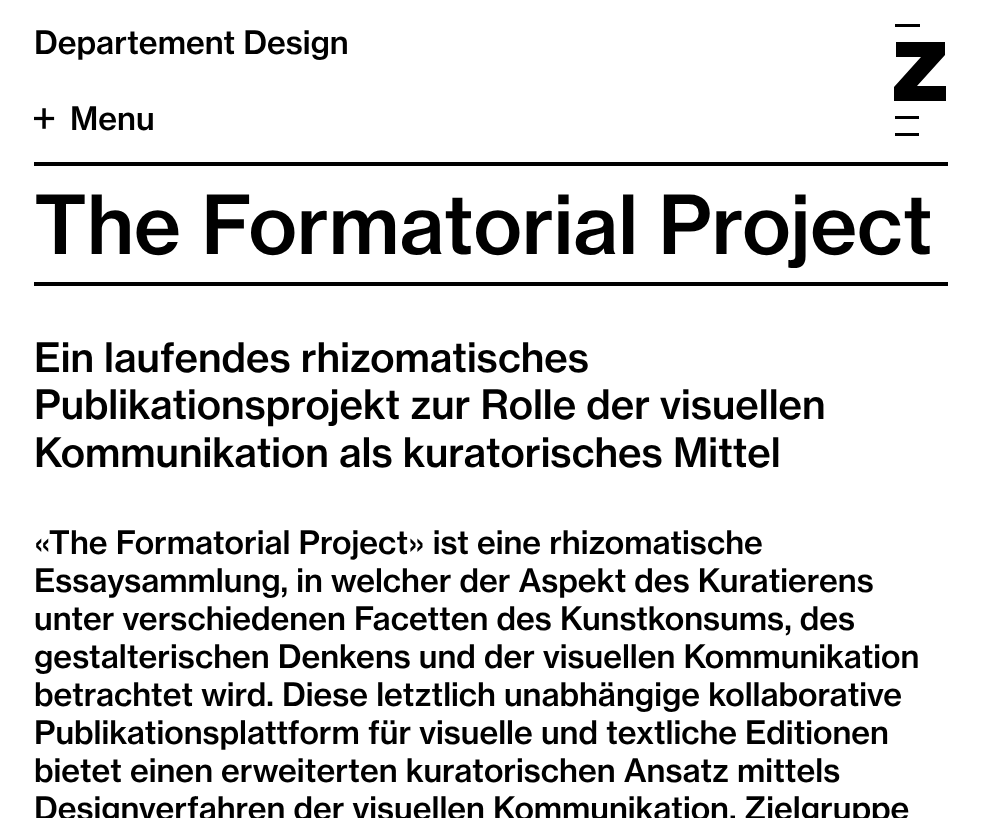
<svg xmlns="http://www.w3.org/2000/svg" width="982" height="818">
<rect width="100%" height="100%" fill="#fff"/>
<rect x="34" y="162" width="914" height="4" fill="#000"/>
<text x="34" y="54" style="font-family:Neue Haas Grotesk;font-size:32px;font-weight:500;fill:#000">Departement Design</text>
<path d="M919 136h-24v-3h24zm0-17h-24v-3h24zm1-92h-25v-3h25z" fill="#000"/>
<path d="M894 101h52v-15h-29l28-31v-13h-49v15h25l-27 30z" fill="#000"/>
<image x="34" y="108" width="21" height="21" href="media/1.png"/>
<text x="70" y="130" style="font-family:Neue Haas Grotesk;font-size:32px;font-weight:500;fill:#000">Menu</text>
<rect x="34" y="282" width="914" height="4" fill="#000"/>
<text x="34" y="254" style="font-family:Neue Haas Grotesk;font-size:80px;font-weight:500;fill:#000">The Formatorial Project</text>
<text x="34" y="372" style="font-family:Neue Haas Grotesk;font-size:40px;font-weight:500;fill:#000">Ein laufendes rhizomatisches</text>
<text x="34" y="419" style="font-family:Neue Haas Grotesk;font-size:40px;font-weight:500;fill:#000">Publikationsprojekt zur Rolle der visuellen</text>
<text x="34" y="467" style="font-family:Neue Haas Grotesk;font-size:40px;font-weight:500;fill:#000">Kommunikation als kuratorisches Mittel</text>
<text x="34" y="554" style="font-family:Neue Haas Grotesk;font-size:32px;font-weight:500;fill:#000">«The Formatorial Project» ist eine rhizomatische</text>
<text x="34" y="592" style="font-family:Neue Haas Grotesk;font-size:32px;font-weight:500;fill:#000">Essaysammlung, in welcher der Aspekt des Kuratierens</text>
<text x="34" y="630" style="font-family:Neue Haas Grotesk;font-size:32px;font-weight:500;fill:#000">unter verschiedenen Facetten des Kunstkonsums, des</text>
<text x="34" y="668" style="font-family:Neue Haas Grotesk;font-size:32px;font-weight:500;fill:#000">gestalterischen Denkens und der visuellen Kommunikation</text>
<text x="34" y="706" style="font-family:Neue Haas Grotesk;font-size:32px;font-weight:500;fill:#000">betrachtet wird. Diese letztlich unabhängige kollaborative</text>
<text x="34" y="744" style="font-family:Neue Haas Grotesk;font-size:32px;font-weight:500;fill:#000">Publikationsplattform für visuelle und textliche Editionen</text>
<text x="34" y="782" style="font-family:Neue Haas Grotesk;font-size:32px;font-weight:500;fill:#000">bietet einen erweiterten kuratorischen Ansatz mittels</text>
<text x="34" y="820" style="font-family:Neue Haas Grotesk;font-size:32px;font-weight:500;fill:#000">Designverfahren der visuellen Kommunikation. Zielgruppe</text>
</svg>
